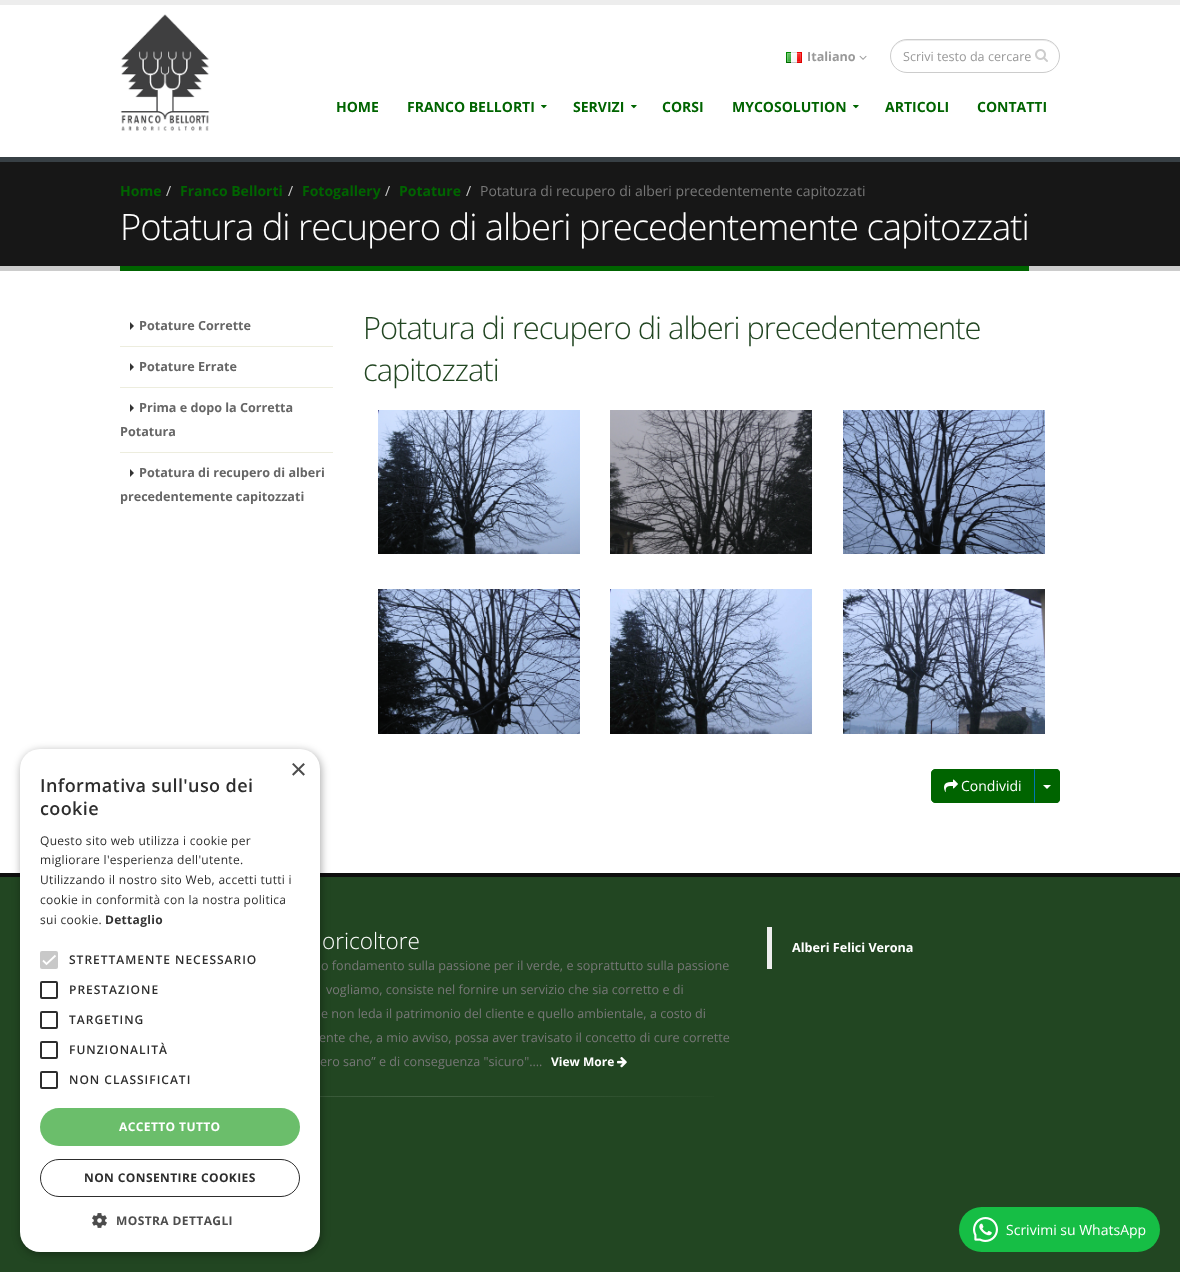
<svg xmlns="http://www.w3.org/2000/svg" width="1180" height="1272">
<defs>
<linearGradient id="g1" gradientUnits="userSpaceOnUse" x1="120" y1="1097" x2="737" y2="1097"><stop offset="0" stop-color="#224622"/><stop offset="0.5" stop-color="#436243"/><stop offset="1" stop-color="#224622"/></linearGradient>
</defs>
<rect width="100%" height="100%" fill="#fff"/>
<rect width="1180" height="5" fill="#ededed"/>
<image x="120" y="14" width="90" height="117" href="media/1.png"/>
<image x="786" y="52" width="16" height="11" href="media/2.png"/>
<text x="807" y="61" style="font-family:Open Sans;font-size:12.6px;font-weight:bold;fill:#999">Italiano</text>
<image x="859" y="55" width="8" height="5" href="media/3.png"/>
<path d="M907 41h136c9 0 16 7 16 15c0-9-7-16-16-16h-136c-9 0-16 7-16 16c0-8 7-15 16-15z" fill="#ececec"/>
<rect x="890.5" y="39.5" width="169" height="33" rx="16.5" fill="none" stroke="#ccc"/>
<text x="903" y="61" style="font-family:Open Sans;font-size:12.6px;fill:#999">Scrivi testo da cercare</text>
<image x="1035" y="49" width="13" height="13" href="media/4.png"/>
<text x="336" y="112" style="font-family:Open Sans;font-size:14px;font-weight:bold;fill:#006400">HOME</text>
<text x="407" y="112" style="font-family:Open Sans;font-size:14px;font-weight:bold;fill:#006400">FRANCO BELLORTI</text>
<image x="541" y="105" width="6" height="4" href="media/5.png"/>
<text x="573" y="112" style="font-family:Open Sans;font-size:14px;font-weight:bold;fill:#006400">SERVIZI</text>
<image x="631" y="105" width="6" height="4" href="media/5.png"/>
<text x="662" y="112" style="font-family:Open Sans;font-size:14px;font-weight:bold;fill:#006400">CORSI</text>
<text x="732" y="112" style="font-family:Open Sans;font-size:14px;font-weight:bold;fill:#006400">MYCOSOLUTION</text>
<image x="853" y="105" width="6" height="4" href="media/5.png"/>
<text x="885" y="112" style="font-family:Open Sans;font-size:14px;font-weight:bold;fill:#006400">ARTICOLI</text>
<text x="977" y="112" style="font-family:Open Sans;font-size:14px;font-weight:bold;fill:#006400">CONTATTI</text>
<rect y="162" width="1180" height="104" fill="#171717"/>
<rect y="157" width="1180" height="5" fill="#384045"/>
<rect y="266" width="1180" height="5" fill="#ccc"/>
<text x="120" y="196" style="font-family:Open Sans;font-size:14px;font-weight:bold;fill:#006400">Home</text>
<text x="166" y="196" style="font-family:Open Sans;font-size:14px;fill:#ccc">/</text>
<text x="180" y="196" style="font-family:Open Sans;font-size:14px;font-weight:bold;fill:#006400">Franco Bellorti</text>
<text x="288" y="196" style="font-family:Open Sans;font-size:14px;fill:#ccc">/</text>
<text x="302" y="196" style="font-family:Open Sans;font-size:14px;font-weight:bold;fill:#006400">Fotogallery</text>
<text x="385" y="196" style="font-family:Open Sans;font-size:14px;fill:#ccc">/</text>
<text x="399" y="196" style="font-family:Open Sans;font-size:14px;font-weight:bold;fill:#006400">Potature</text>
<text x="466" y="196" style="font-family:Open Sans;font-size:14px;fill:#ccc">/</text>
<text x="480" y="196" style="font-family:Open Sans;font-size:14px;fill:#777">Potatura di recupero di alberi precedentemente capitozzati</text>
<rect x="120" y="266" width="909" height="5" fill="#006400"/>
<text x="120" y="240" style="font-family:Open Sans;font-size:36.4px;font-weight:300;letter-spacing:-1px;fill:#fff">Potatura di recupero di alberi precedentemente capitozzati</text>
<rect x="120" y="346" width="213" height="1" fill="#ededde"/>
<path d="M130 330v-8l4 4z" fill="#333"/>
<text x="139" y="330" style="font-family:Open Sans;font-size:12.6px;font-weight:bold;fill:#666">Potature Corrette</text>
<rect x="120" y="387" width="213" height="1" fill="#ededde"/>
<path d="M130 371v-8l4 4z" fill="#333"/>
<text x="139" y="371" style="font-family:Open Sans;font-size:12.6px;font-weight:bold;fill:#666">Potature Errate</text>
<rect x="120" y="452" width="213" height="1" fill="#ededde"/>
<path d="M130 412v-8l4 4z" fill="#333"/>
<text x="139" y="412" style="font-family:Open Sans;font-size:12.6px;font-weight:bold;fill:#666">Prima e dopo la Corretta</text>
<text x="120" y="436" style="font-family:Open Sans;font-size:12.6px;font-weight:bold;fill:#666">Potatura</text>
<path d="M130 477v-8l4 4z" fill="#333"/>
<text x="139" y="477" style="font-family:Open Sans;font-size:12.6px;font-weight:bold;fill:#666">Potatura di recupero di alberi</text>
<text x="120" y="501" style="font-family:Open Sans;font-size:12.6px;font-weight:bold;fill:#666">precedentemente capitozzati</text>
<text x="363" y="339" style="font-family:Open Sans;font-size:30.8px;font-weight:300;letter-spacing:-1px;fill:#224622">Potatura di recupero di alberi precedentemente</text>
<text x="363" y="381" style="font-family:Open Sans;font-size:30.8px;font-weight:300;letter-spacing:-1px;fill:#224622">capitozzati</text>
<image x="378" y="410" width="202" height="144" href="media/6.png"/>
<image x="610" y="410" width="202" height="144" href="media/7.png"/>
<image x="843" y="410" width="202" height="144" href="media/8.png"/>
<image x="378" y="589" width="202" height="145" href="media/9.png"/>
<image x="610" y="589" width="202" height="145" href="media/10.png"/>
<image x="843" y="589" width="202" height="145" href="media/11.png"/>
<path d="M935 769.5h99.5v33h-99.5c-2 0-3.5-1.5-3.5-3.5v-26c0-2 1.5-3.5 3.5-3.5z" fill="#006400" stroke="#006400"/>
<image x="944" y="779" width="14" height="13" href="media/12.png"/>
<text x="961" y="791" style="font-family:Open Sans;font-size:14px;fill:#fff">Condividi</text>
<path d="M1034 769h22c2 0 4 2 4 4v26c0 2-2 4-4 4h-22z" fill="#006400"/>
<path d="M1034 769l1 1h21c1 0 1.5 .5 2 1l1-1c-1-.5-2-1-3-1z" fill="#006400"/>
<path d="M1060 799v-26c0-1-.5-2-1-3l-1 1c.5 .5 1 1 1 2v26c0 1-.5 1.5-1 2l1 1c.5-1 1-2 1-3z" fill="#006400"/>
<path d="M1056 803c1 0 2-.5 3-1l-1-1c-.5 .5-1 1-2 1h-21l-1 1z" fill="#006400"/>
<path d="M1035 770l-1-1v34l1-1z" fill="#0077b3"/>
<path d="M1043 785h8l-4 4z" fill="#fff"/>
<rect y="877" width="1180" height="395" fill="#224622"/>
<rect y="873" width="1180" height="4" fill="#0e0e0e"/>
<text x="322" y="949" style="font-family:Open Sans;font-size:22.5px;font-weight:300;fill:#fff">oricoltore</text>
<text x="321" y="970" style="font-family:Open Sans;font-size:12.6px;fill:#777">o fondamento sulla passione per il verde, e soprattutto sulla passione</text>
<text x="326" y="994" style="font-family:Open Sans;font-size:12.6px;fill:#777">vogliamo, consiste nel fornire un servizio che sia corretto e di</text>
<text x="321" y="1018" style="font-family:Open Sans;font-size:12.6px;fill:#777">e non leda il patrimonio del cliente e quello ambientale, a costo di</text>
<text x="319" y="1042" style="font-family:Open Sans;font-size:12.6px;fill:#777">ente che, a mio avviso, possa aver travisato il concetto di cure corrette</text>
<text x="320" y="1066" style="font-family:Open Sans;font-size:12.6px;fill:#777">ero sano” e di conseguenza "sicuro"....</text>
<text x="551" y="1066" style="font-family:Open Sans;font-size:12px;font-weight:bold;fill:#fff">View More</text>
<image x="617" y="1057" width="10" height="11" href="media/13.png"/>
<rect x="320" y="1096" width="394" height="1" fill="url(#g1)"/>
<rect x="767" y="927" width="5" height="42" fill="#eee"/>
<text x="792" y="952" style="font-family:Open Sans;font-size:12.6px;font-weight:bold;fill:#fff">Alberi Felici Verona</text>
<rect x="21" y="751" width="300" height="503" rx="20" fill="#00000059" filter="blur(4px)"/>
<rect x="20" y="749" width="300" height="503" rx="20" fill="#fff"/>
<text x="290" y="779" style="font-family:Liberation Sans;font-size:29px;fill:#4d4d4d">×</text>
<text x="40" y="792" style="font-family:Open Sans;font-size:18px;font-weight:600;letter-spacing:0.4px;fill:#2d2d2d">Informativa sull'uso dei</text>
<text x="40" y="815" style="font-family:Open Sans;font-size:18px;font-weight:600;letter-spacing:0.4px;fill:#2d2d2d">cookie</text>
<text x="40" y="845" style="font-family:Open Sans;font-size:12px;letter-spacing:0.3px;fill:#2d2d2d">Questo sito web utilizza i cookie per</text>
<text x="40" y="864" style="font-family:Open Sans;font-size:12px;letter-spacing:0.3px;fill:#2d2d2d">migliorare l'esperienza dell'utente.</text>
<text x="40" y="884" style="font-family:Open Sans;font-size:12px;letter-spacing:0.3px;fill:#2d2d2d">Utilizzando il nostro sito Web, accetti tutti i</text>
<text x="40" y="904" style="font-family:Open Sans;font-size:12px;letter-spacing:0.3px;fill:#2d2d2d">cookie in conformità con la nostra politica</text>
<text x="40" y="924" style="font-family:Open Sans;font-size:12px;letter-spacing:0.3px;fill:#2d2d2d">sui cookie.</text>
<text x="105" y="924" style="font-family:Open Sans;font-size:12px;font-weight:bold;letter-spacing:0.3px;fill:#333">Dettaglio</text>
<rect x="40" y="951" width="18" height="18" rx="2" fill="#c8c8c8"/>
<path d="M43 960.5l3.5 3.5l9-8.5" fill="none" stroke="#fff" stroke-width="1.8"/>
<text x="69" y="964" style="font-family:Open Sans;font-size:12px;font-weight:600;letter-spacing:1px;fill:#2d2d2d">STRETTAMENTE NECESSARIO</text>
<rect x="41" y="982" width="16" height="16" rx="1" fill="none" stroke="#2d2d2d" stroke-width="2"/>
<text x="69" y="994" style="font-family:Open Sans;font-size:12px;font-weight:600;letter-spacing:1px;fill:#2d2d2d">PRESTAZIONE</text>
<rect x="41" y="1012" width="16" height="16" rx="1" fill="none" stroke="#2d2d2d" stroke-width="2"/>
<text x="69" y="1024" style="font-family:Open Sans;font-size:12px;font-weight:600;letter-spacing:1px;fill:#2d2d2d">TARGETING</text>
<rect x="41" y="1042" width="16" height="16" rx="1" fill="none" stroke="#2d2d2d" stroke-width="2"/>
<text x="69" y="1054" style="font-family:Open Sans;font-size:12px;font-weight:600;letter-spacing:1px;fill:#2d2d2d">FUNZIONALITÀ</text>
<rect x="41" y="1072" width="16" height="16" rx="1" fill="none" stroke="#2d2d2d" stroke-width="2"/>
<text x="69" y="1084" style="font-family:Open Sans;font-size:12px;font-weight:600;letter-spacing:1px;fill:#2d2d2d">NON CLASSIFICATI</text>
<rect x="40" y="1108" width="260" height="38" rx="19" fill="#6bbe6b"/>
<text x="119" y="1131" style="font-family:Open Sans;font-size:12px;font-weight:bold;letter-spacing:0.4px;fill:#fff">ACCETTO TUTTO</text>
<rect x="40.5" y="1159.5" width="259" height="37" rx="18.5" fill="none" stroke="#2d2d2d"/>
<text x="84" y="1182" style="font-family:Open Sans;font-size:12px;font-weight:bold;letter-spacing:0.4px;fill:#2d2d2d">NON CONSENTIRE COOKIES</text>
<image x="92" y="1213" width="15" height="15" href="media/14.png"/>
<text x="116" y="1225" style="font-family:Open Sans;font-size:12px;font-weight:bold;letter-spacing:0.4px;fill:#4d4d4d">MOSTRA DETTAGLI</text>
<rect x="959" y="1207" width="201" height="45" rx="22.5" fill="#16be45"/>
<image x="973" y="1217" width="25" height="25" href="media/15.png"/>
<text x="1006" y="1235" style="font-family:Open Sans;font-size:14px;fill:#fff">Scrivimi su WhatsApp</text>
</svg>
